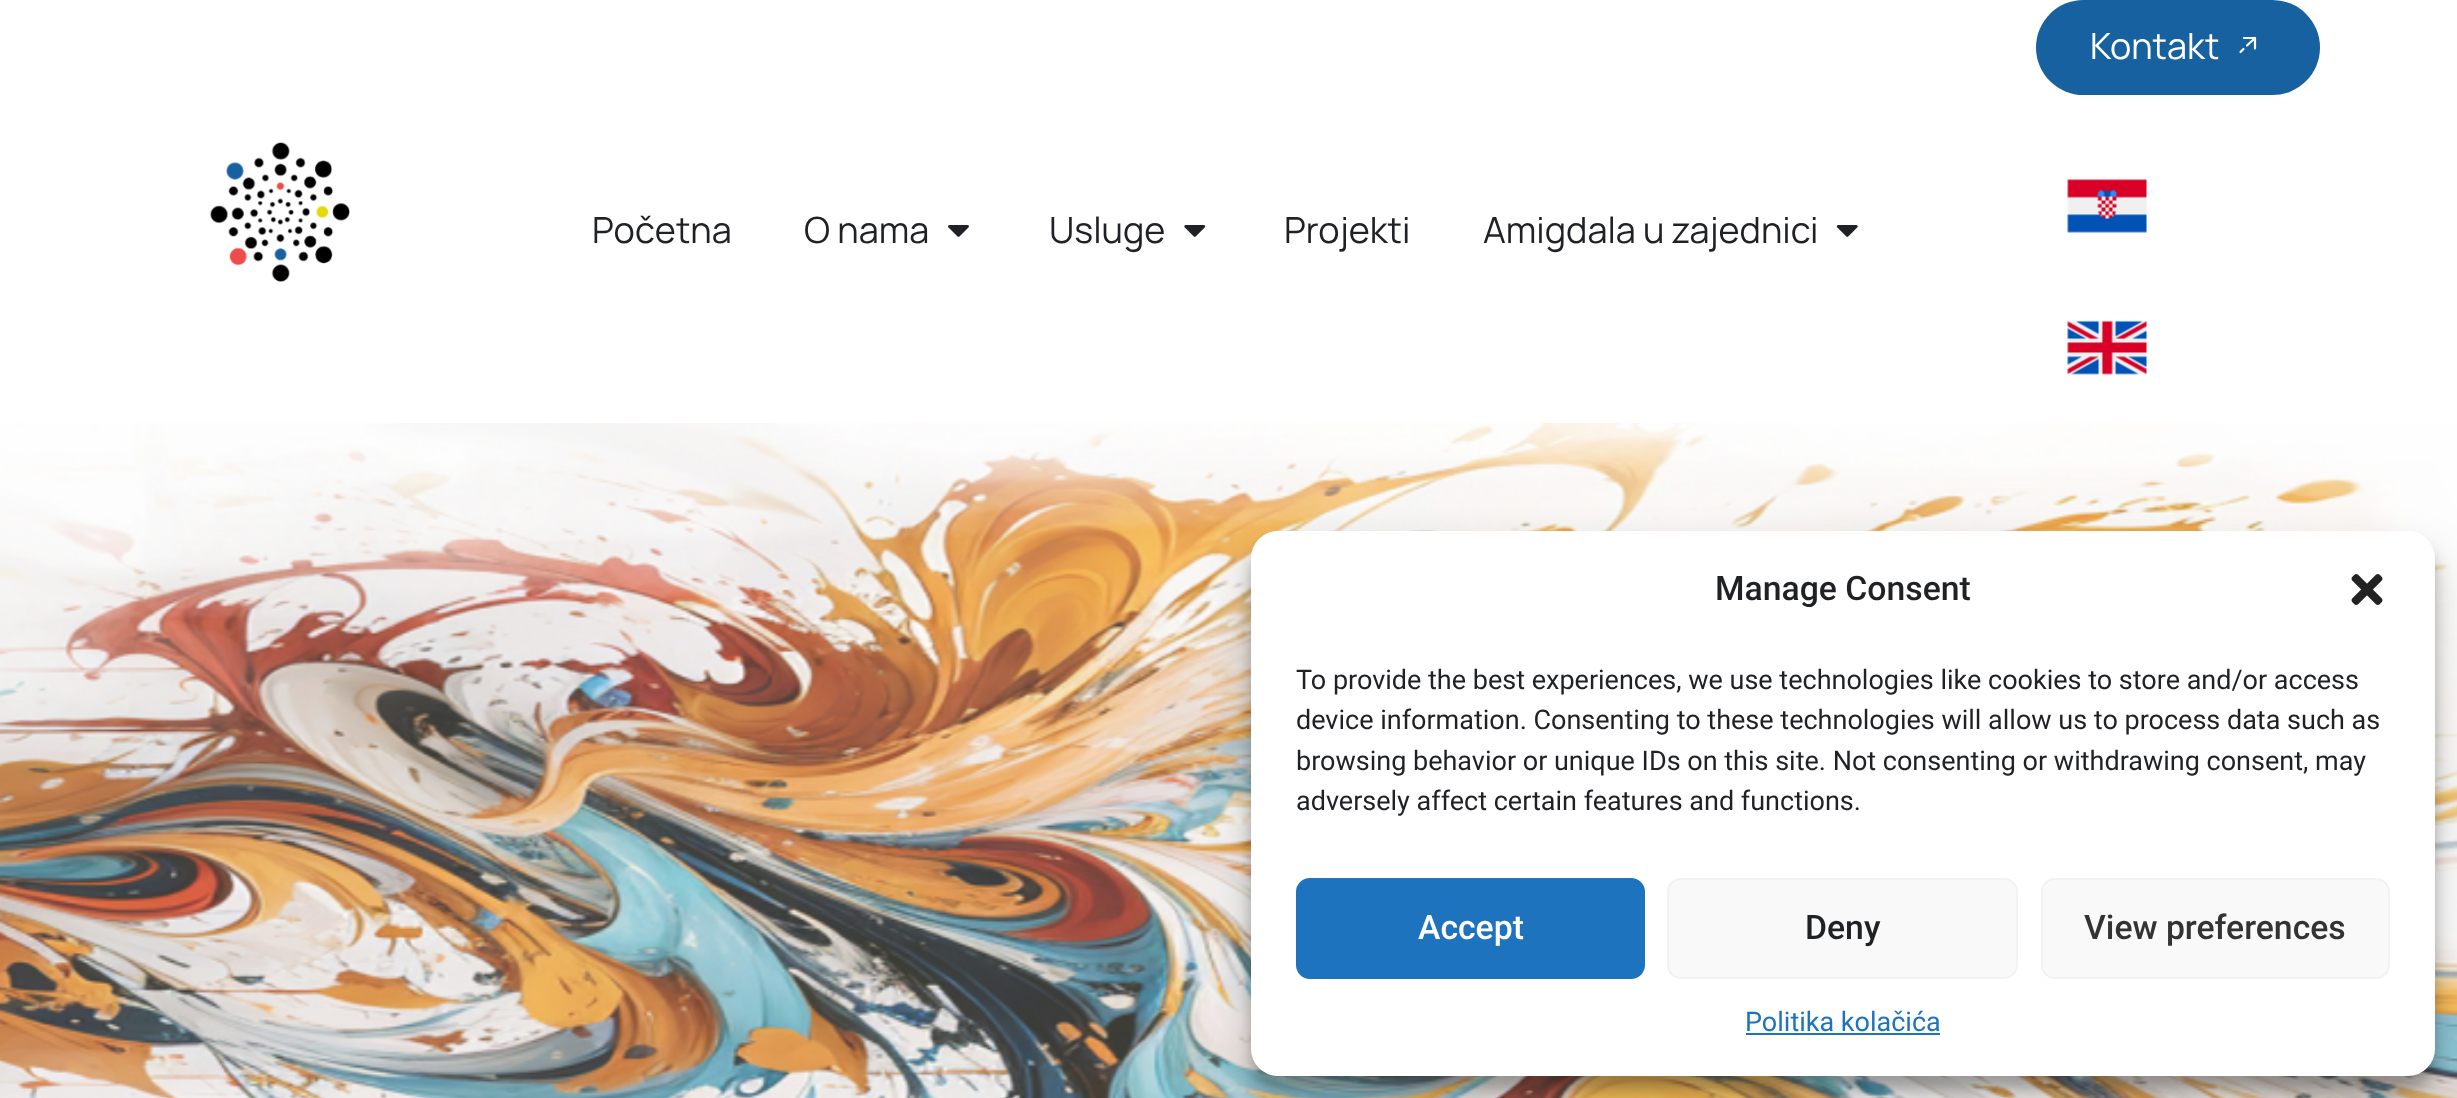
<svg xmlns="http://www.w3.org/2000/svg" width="2457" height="1098">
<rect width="100%" height="100%" fill="#fff"/>
<rect x="2036" width="284" height="95" rx="47.5" fill="#1761a0"/>
<text x="2090" y="59" style="font-family:Manrope;font-size:36px;fill:#fff">Kontakt</text>
<path d="M2255 38h-11m11 0v10.5m0-10.5l-8 7.5m-6.5 6.5l3-3" fill="none" stroke="#fff" stroke-width="2.2" stroke-linecap="round" stroke-linejoin="round"/>
<image x="2067" y="179" width="80" height="54" href="media/1.png"/>
<image x="2067" y="320" width="80" height="55" href="media/2.png"/>
<image x="209" y="142" width="141" height="140" href="media/3.png"/>
<text x="592" y="243" style="font-family:Manrope;font-size:36px;fill:#1f2124">Početna</text>
<text x="804" y="243" style="font-family:Manrope;font-size:36px;fill:#1f2124">O nama</text>
<image x="948" y="225" width="21" height="12" href="media/4.png"/>
<text x="1049" y="243" style="font-family:Manrope;font-size:36px;fill:#1f2124">Usluge</text>
<image x="1184" y="225" width="22" height="12" href="media/5.png"/>
<text x="1284" y="243" style="font-family:Manrope;font-size:36px;fill:#1f2124">Projekti</text>
<text x="1483" y="243" style="font-family:Manrope;font-size:36px;fill:#1f2124">Amigdala u zajednici</text>
<image x="1836" y="225" width="22" height="12" href="media/6.png"/>
<image x="0" y="423" width="2457" height="675" href="media/7.png"/>
<rect x="1251" y="545" width="1184" height="544" rx="27" fill="#0000003b" filter="blur(7px)"/>
<rect x="1251" y="554" width="1184" height="544" rx="27" fill="#00000030" filter="blur(22.5px)"/>
<rect x="1251" y="531" width="1184" height="545" rx="27" fill="#fff"/>
<text x="1715" y="600" style="font-family:Roboto;font-size:33.75px;font-weight:500;fill:#1f2124">Manage Consent</text>
<image x="2351" y="574" width="32" height="31" href="media/8.png"/>
<text x="1296" y="689" style="font-family:Roboto;font-size:27px;fill:#1f2124">To provide the best experiences, we use technologies like cookies to store and/or access</text>
<text x="1296" y="729" style="font-family:Roboto;font-size:27px;fill:#1f2124">device information. Consenting to these technologies will allow us to process data such as</text>
<text x="1296" y="770" style="font-family:Roboto;font-size:27px;fill:#1f2124">browsing behavior or unique IDs on this site. Not consenting or withdrawing consent, may</text>
<text x="1296" y="810" style="font-family:Roboto;font-size:27px;fill:#1f2124">adversely affect certain features and functions.</text>
<rect x="1297" y="879" width="347" height="99" rx="13" fill="#1e73be" stroke="#1e73be" stroke-width="2"/>
<text x="1418" y="939" style="font-family:Roboto;font-size:33.75px;font-weight:500;fill:#fff">Accept</text>
<rect x="1668" y="879" width="349" height="99" rx="13" fill="#f9f9f9" stroke="#f2f2f2" stroke-width="2"/>
<text x="1805" y="939" style="font-family:Roboto;font-size:33.75px;font-weight:500;fill:#1f2124">Deny</text>
<rect x="2042" y="879" width="347" height="99" rx="13" fill="#f9f9f9" stroke="#f2f2f2" stroke-width="2"/>
<text x="2084" y="939" style="font-family:Roboto;font-size:33.75px;font-weight:500;fill:#333">View preferences</text>
<text x="1745" y="1031" style="font-family:Roboto;font-size:27px;fill:#1e73be">Politika kolačića</text>
<rect x="1746" y="1033" width="194" height="2" fill="#1e73be"/>
</svg>
